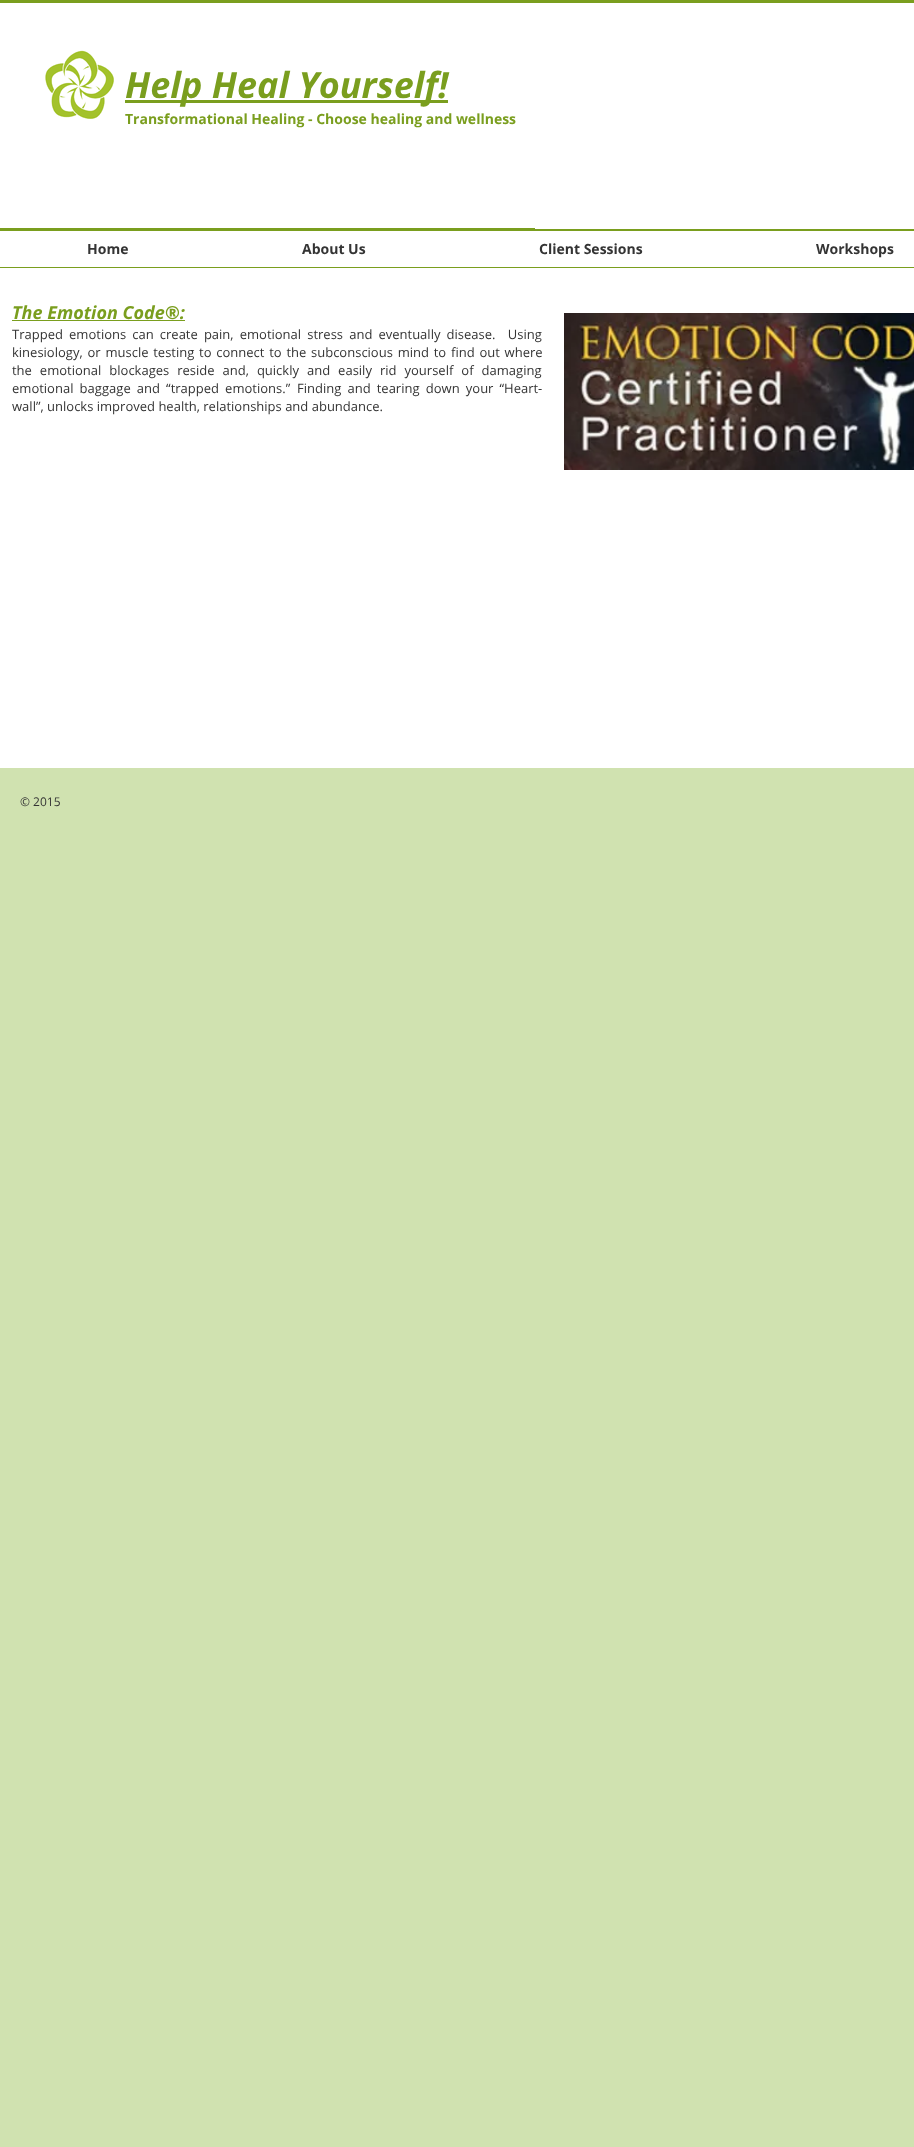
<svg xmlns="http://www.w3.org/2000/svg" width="914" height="2147">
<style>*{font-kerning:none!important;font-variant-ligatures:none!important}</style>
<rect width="100%" height="100%" fill="#d0e2b0"/>
<rect y="3" width="914" height="264" fill="#fff"/>
<rect width="914" height="3" fill="#7a9e1e"/>
<image x="45" y="50" width="69" height="69" href="media/1.png"/>
<rect x="125" y="100" width="323" height="3" fill="#7a9e1e"/>
<text x="125" y="98" style="font-family:Open Sans;font-size:36px;font-weight:bold;font-style:italic;fill:#7a9e1e">Help Heal Yourself!</text>
<text x="125" y="124" style="font-family:Open Sans;font-size:14px;font-weight:bold;fill:#7a9e1e">Transformational Healing - Choose healing and wellness</text>
<rect y="228" width="914" height="3" fill="#7a9e1e"/>
<rect y="267" width="914" height="1" fill="#7a9e1e"/>
<text x="87" y="254" style="font-family:Open Sans;font-size:14px;font-weight:bold;fill:#343434">Home</text>
<text x="302" y="254" style="font-family:Open Sans;font-size:14px;font-weight:bold;fill:#343434">About Us</text>
<text x="539" y="254" style="font-family:Open Sans;font-size:14px;font-weight:bold;fill:#343434">Client Sessions</text>
<text x="816" y="254" style="font-family:Open Sans;font-size:14px;font-weight:bold;fill:#343434">Workshops</text>
<rect x="535" y="228" width="379" height="1" fill="#fff"/>
<rect y="268" width="914" height="500" fill="#fff"/>
<text x="12" y="319" style="font-family:Open Sans;font-size:18px;font-weight:bold;font-style:italic;fill:#7a9e1e">The Emotion Code®:</text>
<rect x="12" y="320" width="173" height="1" fill="#7a9e1e"/>
<text x="12" y="339" word-spacing="2.75" style="font-family:Open Sans;font-size:13px;fill:#343434" xml:space="preserve">Trapped emotions can create pain, emotional stress and eventually disease.  Using</text>
<text x="12" y="357" word-spacing="1.4" style="font-family:Open Sans;font-size:13px;fill:#343434">kinesiology, or muscle testing to connect to the subconscious mind to find out where</text>
<text x="12" y="375" word-spacing="4.6" style="font-family:Open Sans;font-size:13px;fill:#343434">the emotional blockages reside and, quickly and easily rid yourself of damaging</text>
<text x="12" y="393" word-spacing="2.75" style="font-family:Open Sans;font-size:13px;fill:#343434">emotional baggage and “trapped emotions.”</text>
<text x="297" y="393" word-spacing="2.75" style="font-family:Open Sans;font-size:13px;fill:#343434">Finding and tearing down your “Heart-</text>
<text x="12" y="411" style="font-family:Open Sans;font-size:13px;fill:#343434">wall”, unlocks improved health, relationships and abundance.</text>
<image x="564" y="313" width="350" height="157" href="media/2.png"/>
<text x="20" y="806" style="font-family:Open Sans;font-size:12px;fill:#343434">© 2015</text>
</svg>
